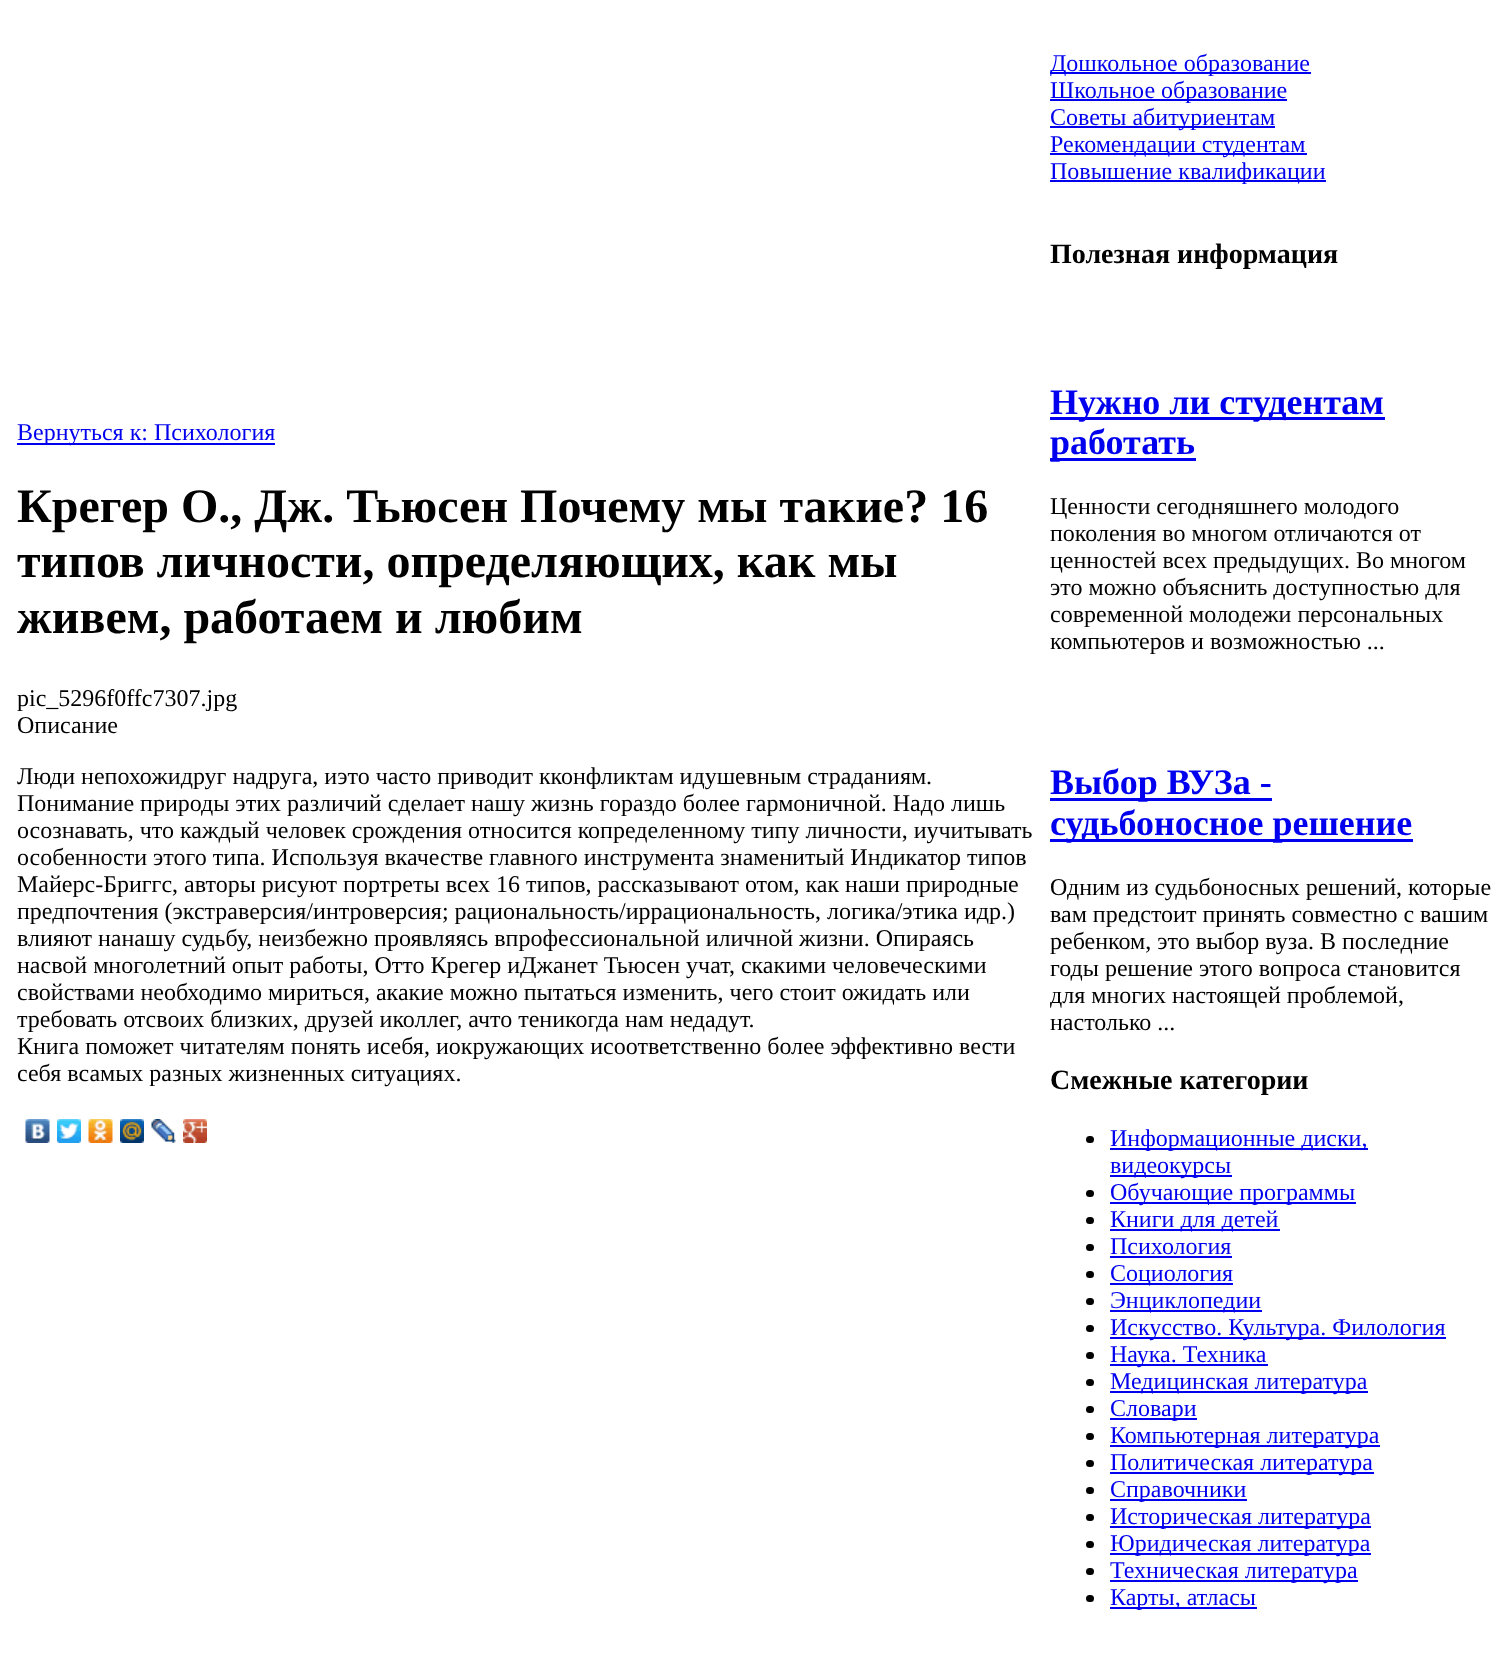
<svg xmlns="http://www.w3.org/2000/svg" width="1510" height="1654">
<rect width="100%" height="100%" fill="#fff"/>
<rect x="17" y="443" width="258" height="2" fill="#00e"/>
<text x="17" y="440" style="font-family:Liberation Serif;font-size:24px;fill:#00e">Вернуться к: Психология</text>
<text x="17" y="522" style="font-family:Liberation Serif;font-size:48px;font-weight:bold;fill:#000">Крегер О., Дж. Тьюсен Почему мы такие? 16</text>
<text x="17" y="577" style="font-family:Liberation Serif;font-size:48px;font-weight:bold;fill:#000">типов личности, определяющих, как мы</text>
<text x="17" y="633" style="font-family:Liberation Serif;font-size:48px;font-weight:bold;fill:#000">живем, работаем и любим</text>
<text x="17" y="706" style="font-family:Liberation Serif;font-size:24px;fill:#000">pic_5296f0ffc7307.jpg</text>
<text x="17" y="733" style="font-family:Liberation Serif;font-size:24px;fill:#000">Описание</text>
<text x="17" y="784" style="font-family:Liberation Serif;font-size:24px;fill:#000">Люди непохожидруг надруга, иэто часто приводит кконфликтам идушевным страданиям.</text>
<text x="17" y="811" style="font-family:Liberation Serif;font-size:24px;fill:#000">Понимание природы этих различий сделает нашу жизнь гораздо более гармоничной. Надо лишь</text>
<text x="17" y="838" style="font-family:Liberation Serif;font-size:24px;fill:#000">осознавать, что каждый человек срождения относится копределенному типу личности, иучитывать</text>
<text x="17" y="865" style="font-family:Liberation Serif;font-size:24px;fill:#000">особенности этого типа. Используя вкачестве главного инструмента знаменитый Индикатор типов</text>
<text x="17" y="892" style="font-family:Liberation Serif;font-size:24px;fill:#000">Майерс-Бриггс, авторы рисуют портреты всех 16 типов, рассказывают отом, как наши природные</text>
<text x="17" y="919" style="font-family:Liberation Serif;font-size:24px;fill:#000">предпочтения (экстраверсия/интроверсия; рациональность/иррациональность, логика/этика идр.)</text>
<text x="17" y="946" style="font-family:Liberation Serif;font-size:24px;fill:#000">влияют нанашу судьбу, неизбежно проявляясь впрофессиональной иличной жизни. Опираясь</text>
<text x="17" y="973" style="font-family:Liberation Serif;font-size:24px;fill:#000">насвой многолетний опыт работы, Отто Крегер иДжанет Тьюсен учат, скакими человеческими</text>
<text x="17" y="1000" style="font-family:Liberation Serif;font-size:24px;fill:#000">свойствами необходимо мириться, акакие можно пытаться изменить, чего стоит ожидать или</text>
<text x="17" y="1027" style="font-family:Liberation Serif;font-size:24px;fill:#000">требовать отсвоих близких, друзей иколлег, ачто теникогда нам недадут.</text>
<text x="17" y="1054" style="font-family:Liberation Serif;font-size:24px;fill:#000">Книга поможет читателям понять исебя, иокружающих исоответственно более эффективно вести</text>
<text x="17" y="1081" style="font-family:Liberation Serif;font-size:24px;fill:#000">себя всамых разных жизненных ситуациях.</text>
<image x="25" y="1119" width="25" height="24" href="media/1.png"/>
<image x="57" y="1119" width="24" height="24" href="media/2.png"/>
<image x="88" y="1119" width="25" height="24" href="media/3.png"/>
<image x="120" y="1119" width="24" height="24" href="media/4.png"/>
<image x="151" y="1119" width="25" height="24" href="media/5.png"/>
<image x="183" y="1119" width="24" height="24" href="media/6.png"/>
<rect x="1050" y="72" width="261" height="2" fill="#00e"/>
<text x="1050" y="71" style="font-family:Liberation Serif;font-size:24px;fill:#00e">Дошкольное образование</text>
<rect x="1050" y="99" width="237" height="2" fill="#00e"/>
<text x="1050" y="98" style="font-family:Liberation Serif;font-size:24px;fill:#00e">Школьное образование</text>
<rect x="1050" y="126" width="225" height="2" fill="#00e"/>
<text x="1050" y="125" style="font-family:Liberation Serif;font-size:24px;fill:#00e">Советы абитуриентам</text>
<rect x="1050" y="153" width="257" height="2" fill="#00e"/>
<text x="1050" y="152" style="font-family:Liberation Serif;font-size:24px;fill:#00e">Рекомендации студентам</text>
<rect x="1050" y="180" width="276" height="2" fill="#00e"/>
<text x="1050" y="179" style="font-family:Liberation Serif;font-size:24px;fill:#00e">Повышение квалификации</text>
<text x="1050" y="263" style="font-family:Liberation Serif;font-size:28px;font-weight:bold;fill:#000">Полезная информация</text>
<rect x="1050" y="417" width="335" height="3" fill="#00e"/>
<text x="1050" y="414" style="font-family:Liberation Serif;font-size:36px;font-weight:bold;fill:#00e">Нужно ли студентам</text>
<rect x="1050" y="458" width="146" height="3" fill="#00e"/>
<text x="1050" y="454" style="font-family:Liberation Serif;font-size:36px;font-weight:bold;fill:#00e">работать</text>
<text x="1050" y="514" style="font-family:Liberation Serif;font-size:24px;fill:#000">Ценности сегодняшнего молодого</text>
<text x="1050" y="541" style="font-family:Liberation Serif;font-size:24px;fill:#000">поколения во многом отличаются от</text>
<text x="1050" y="568" style="font-family:Liberation Serif;font-size:24px;fill:#000">ценностей всех предыдущих. Во многом</text>
<text x="1050" y="595" style="font-family:Liberation Serif;font-size:24px;fill:#000">это можно объяснить доступностью для</text>
<text x="1050" y="622" style="font-family:Liberation Serif;font-size:24px;fill:#000">современной молодежи персональных</text>
<text x="1050" y="649" style="font-family:Liberation Serif;font-size:24px;fill:#000">компьютеров и возможностью ...</text>
<rect x="1050" y="798" width="222" height="3" fill="#00e"/>
<text x="1050" y="794" style="font-family:Liberation Serif;font-size:36px;font-weight:bold;fill:#00e">Выбор ВУЗа -</text>
<rect x="1050" y="839" width="363" height="3" fill="#00e"/>
<text x="1050" y="835" style="font-family:Liberation Serif;font-size:36px;font-weight:bold;fill:#00e">судьбоносное решение</text>
<text x="1050" y="895" style="font-family:Liberation Serif;font-size:24px;fill:#000">Одним из судьбоносных решений, которые</text>
<text x="1050" y="922" style="font-family:Liberation Serif;font-size:24px;fill:#000">вам предстоит принять совместно с вашим</text>
<text x="1050" y="949" style="font-family:Liberation Serif;font-size:24px;fill:#000">ребенком, это выбор вуза. В последние</text>
<text x="1050" y="976" style="font-family:Liberation Serif;font-size:24px;fill:#000">годы решение этого вопроса становится</text>
<text x="1050" y="1003" style="font-family:Liberation Serif;font-size:24px;fill:#000">для многих настоящей проблемой,</text>
<text x="1050" y="1030" style="font-family:Liberation Serif;font-size:24px;fill:#000">настолько ...</text>
<text x="1050" y="1089" style="font-family:Liberation Serif;font-size:28px;font-weight:bold;fill:#000">Смежные категории</text>
<rect x="1086" y="1136" width="8" height="7" rx="3.5" fill="#000"/>
<rect x="1110" y="1148" width="258" height="2" fill="#00e"/>
<text x="1110" y="1146" style="font-family:Liberation Serif;font-size:24px;fill:#00e">Информационные диски,</text>
<rect x="1110" y="1175" width="122" height="2" fill="#00e"/>
<text x="1110" y="1173" style="font-family:Liberation Serif;font-size:24px;fill:#00e">видеокурсы</text>
<rect x="1086" y="1190" width="8" height="7" rx="3.5" fill="#000"/>
<rect x="1110" y="1202" width="246" height="2" fill="#00e"/>
<text x="1110" y="1200" style="font-family:Liberation Serif;font-size:24px;fill:#00e">Обучающие программы</text>
<rect x="1086" y="1217" width="8" height="7" rx="3.5" fill="#000"/>
<rect x="1110" y="1229" width="170" height="2" fill="#00e"/>
<text x="1110" y="1227" style="font-family:Liberation Serif;font-size:24px;fill:#00e">Книги для детей</text>
<rect x="1086" y="1244" width="8" height="7" rx="3.5" fill="#000"/>
<text x="1110" y="1254" style="font-family:Liberation Serif;font-size:24px;fill:#00e">Психология</text>
<rect x="1110" y="1256" width="122" height="2" fill="#00e"/>
<rect x="1086" y="1271" width="8" height="7" rx="3.5" fill="#000"/>
<rect x="1110" y="1283" width="123" height="2" fill="#00e"/>
<text x="1110" y="1281" style="font-family:Liberation Serif;font-size:24px;fill:#00e">Социология</text>
<rect x="1086" y="1298" width="8" height="7" rx="3.5" fill="#000"/>
<rect x="1110" y="1310" width="152" height="2" fill="#00e"/>
<text x="1110" y="1308" style="font-family:Liberation Serif;font-size:24px;fill:#00e">Энциклопедии</text>
<rect x="1086" y="1325" width="8" height="7" rx="3.5" fill="#000"/>
<rect x="1110" y="1337" width="336" height="2" fill="#00e"/>
<text x="1110" y="1335" style="font-family:Liberation Serif;font-size:24px;fill:#00e">Искусство. Культура. Филология</text>
<rect x="1086" y="1352" width="8" height="7" rx="3.5" fill="#000"/>
<rect x="1110" y="1364" width="158" height="2" fill="#00e"/>
<text x="1110" y="1362" style="font-family:Liberation Serif;font-size:24px;fill:#00e">Наука. Техника</text>
<rect x="1086" y="1379" width="8" height="7" rx="3.5" fill="#000"/>
<rect x="1110" y="1391" width="258" height="2" fill="#00e"/>
<text x="1110" y="1389" style="font-family:Liberation Serif;font-size:24px;fill:#00e">Медицинская литература</text>
<rect x="1086" y="1406" width="8" height="7" rx="3.5" fill="#000"/>
<rect x="1110" y="1418" width="87" height="2" fill="#00e"/>
<text x="1110" y="1416" style="font-family:Liberation Serif;font-size:24px;fill:#00e">Словари</text>
<rect x="1086" y="1433" width="8" height="7" rx="3.5" fill="#000"/>
<rect x="1110" y="1445" width="270" height="2" fill="#00e"/>
<text x="1110" y="1443" style="font-family:Liberation Serif;font-size:24px;fill:#00e">Компьютерная литература</text>
<rect x="1086" y="1460" width="8" height="7" rx="3.5" fill="#000"/>
<rect x="1110" y="1472" width="264" height="2" fill="#00e"/>
<text x="1110" y="1470" style="font-family:Liberation Serif;font-size:24px;fill:#00e">Политическая литература</text>
<rect x="1086" y="1487" width="8" height="7" rx="3.5" fill="#000"/>
<rect x="1110" y="1499" width="137" height="2" fill="#00e"/>
<text x="1110" y="1497" style="font-family:Liberation Serif;font-size:24px;fill:#00e">Справочники</text>
<rect x="1086" y="1514" width="8" height="7" rx="3.5" fill="#000"/>
<rect x="1110" y="1526" width="261" height="2" fill="#00e"/>
<text x="1110" y="1524" style="font-family:Liberation Serif;font-size:24px;fill:#00e">Историческая литература</text>
<rect x="1086" y="1541" width="8" height="7" rx="3.5" fill="#000"/>
<rect x="1110" y="1553" width="261" height="2" fill="#00e"/>
<text x="1110" y="1551" style="font-family:Liberation Serif;font-size:24px;fill:#00e">Юридическая литература</text>
<rect x="1086" y="1568" width="8" height="7" rx="3.5" fill="#000"/>
<rect x="1110" y="1580" width="248" height="2" fill="#00e"/>
<text x="1110" y="1578" style="font-family:Liberation Serif;font-size:24px;fill:#00e">Техническая литература</text>
<rect x="1086" y="1595" width="8" height="7" rx="3.5" fill="#000"/>
<rect x="1110" y="1607" width="147" height="2" fill="#00e"/>
<text x="1110" y="1605" style="font-family:Liberation Serif;font-size:24px;fill:#00e">Карты, атласы</text>
</svg>
